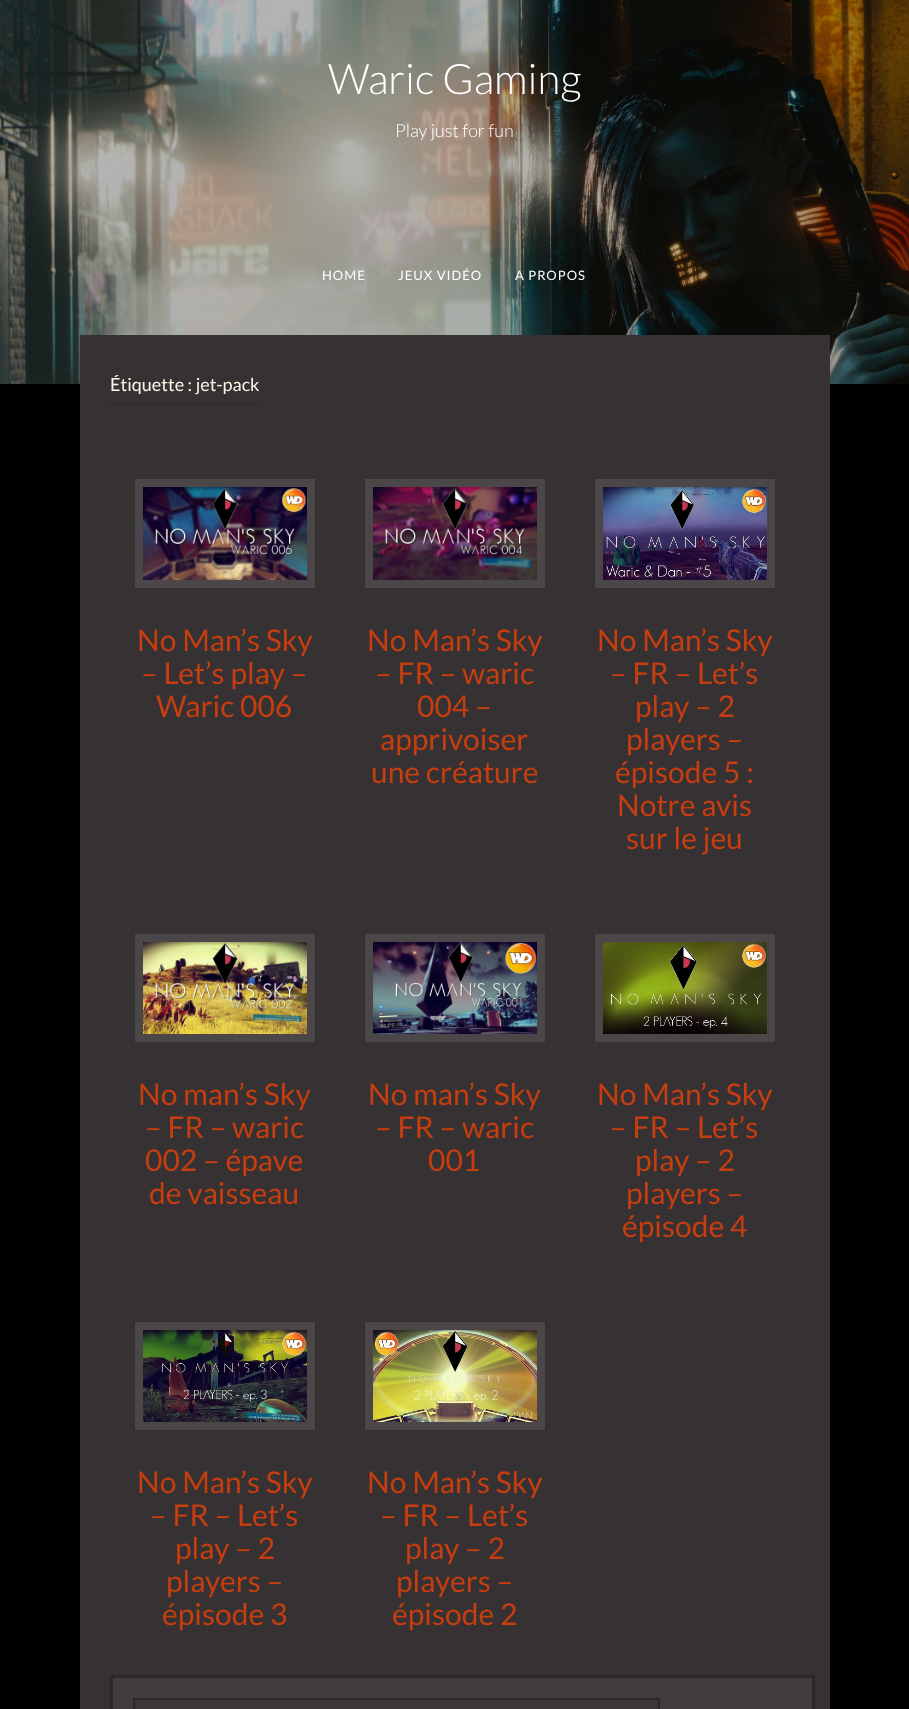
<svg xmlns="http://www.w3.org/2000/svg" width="909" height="1709">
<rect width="100%" height="100%" fill="#000"/>
<image x="0" y="0" width="909" height="384" href="media/1.png"/>
<text x="328" y="94" style="font-family:Lato;font-size:42px;font-weight:300;fill:#fff">Waric Gaming</text>
<text x="395" y="137" style="font-family:Lato;font-size:18px;font-weight:300;fill:#fff">Play just for fun</text>
<text x="322" y="280" style="font-family:Lato;font-size:13px;letter-spacing:1px;fill:#fff">HOME</text>
<text x="398" y="280" style="font-family:Lato;font-size:13px;letter-spacing:1px;fill:#fff">JEUX VIDÉO</text>
<text x="515" y="280" style="font-family:Lato;font-size:13px;letter-spacing:1px;fill:#fff">A PROPOS</text>
<rect x="80" y="335" width="750" height="1374" fill="#363233"/>
<rect x="110" y="404" width="149" height="1" fill="#2b2829"/>
<text x="110" y="391" style="font-family:Lato;font-size:18px;fill:#fdf3e7">Étiquette : jet-pack</text>
<rect x="139" y="483" width="172" height="101" fill="none" stroke="#4b4647" stroke-width="8"/>
<image x="143" y="487" width="164" height="93" href="media/2.png"/>
<rect x="134.5" y="478.5" width="181" height="110" fill="none" stroke="#333030"/>
<text x="137" y="651" style="font-family:Lato;font-size:30px;fill:#c63d0f">No Man’s Sky</text>
<text x="141" y="684" style="font-family:Lato;font-size:30px;fill:#c63d0f">– Let’s play –</text>
<text x="156" y="717" style="font-family:Lato;font-size:30px;fill:#c63d0f">Waric 006</text>
<rect x="369" y="483" width="172" height="101" fill="none" stroke="#4b4647" stroke-width="8"/>
<image x="373" y="487" width="164" height="93" href="media/3.png"/>
<rect x="364.5" y="478.5" width="181" height="110" fill="none" stroke="#333030"/>
<text x="367" y="651" style="font-family:Lato;font-size:30px;fill:#c63d0f">No Man’s Sky</text>
<text x="375" y="684" style="font-family:Lato;font-size:30px;fill:#c63d0f">– FR – waric</text>
<text x="417" y="717" style="font-family:Lato;font-size:30px;fill:#c63d0f">004 –</text>
<text x="380" y="750" style="font-family:Lato;font-size:30px;fill:#c63d0f">apprivoiser</text>
<text x="371" y="783" style="font-family:Lato;font-size:30px;fill:#c63d0f">une créature</text>
<rect x="599" y="483" width="172" height="101" fill="none" stroke="#4b4647" stroke-width="8"/>
<image x="603" y="487" width="164" height="93" href="media/4.png"/>
<rect x="594.5" y="478.5" width="181" height="110" fill="none" stroke="#333030"/>
<text x="597" y="651" style="font-family:Lato;font-size:30px;fill:#c63d0f">No Man’s Sky</text>
<text x="610" y="684" style="font-family:Lato;font-size:30px;fill:#c63d0f">– FR – Let’s</text>
<text x="635" y="717" style="font-family:Lato;font-size:30px;fill:#c63d0f">play – 2</text>
<text x="626" y="750" style="font-family:Lato;font-size:30px;fill:#c63d0f">players –</text>
<text x="615" y="783" style="font-family:Lato;font-size:30px;fill:#c63d0f">épisode 5 :</text>
<text x="617" y="816" style="font-family:Lato;font-size:30px;fill:#c63d0f">Notre avis</text>
<text x="626" y="849" style="font-family:Lato;font-size:30px;fill:#c63d0f">sur le jeu</text>
<rect x="139" y="938" width="172" height="100" fill="none" stroke="#4b4647" stroke-width="8"/>
<image x="143" y="942" width="164" height="92" href="media/5.png"/>
<rect x="134.5" y="933.5" width="181" height="109" fill="none" stroke="#333030"/>
<text x="138" y="1105" style="font-family:Lato;font-size:30px;fill:#c63d0f">No man’s Sky</text>
<text x="145" y="1138" style="font-family:Lato;font-size:30px;fill:#c63d0f">– FR – waric</text>
<text x="145" y="1171" style="font-family:Lato;font-size:30px;fill:#c63d0f">002 – épave</text>
<text x="149" y="1204" style="font-family:Lato;font-size:30px;fill:#c63d0f">de vaisseau</text>
<rect x="369" y="938" width="172" height="100" fill="none" stroke="#4b4647" stroke-width="8"/>
<image x="373" y="942" width="164" height="92" href="media/6.png"/>
<rect x="364.5" y="933.5" width="181" height="109" fill="none" stroke="#333030"/>
<text x="368" y="1105" style="font-family:Lato;font-size:30px;fill:#c63d0f">No man’s Sky</text>
<text x="375" y="1138" style="font-family:Lato;font-size:30px;fill:#c63d0f">– FR – waric</text>
<text x="428" y="1171" style="font-family:Lato;font-size:30px;fill:#c63d0f">001</text>
<rect x="599" y="938" width="172" height="100" fill="none" stroke="#4b4647" stroke-width="8"/>
<image x="603" y="942" width="164" height="92" href="media/7.png"/>
<rect x="594.5" y="933.5" width="181" height="109" fill="none" stroke="#333030"/>
<text x="597" y="1105" style="font-family:Lato;font-size:30px;fill:#c63d0f">No Man’s Sky</text>
<text x="610" y="1138" style="font-family:Lato;font-size:30px;fill:#c63d0f">– FR – Let’s</text>
<text x="635" y="1171" style="font-family:Lato;font-size:30px;fill:#c63d0f">play – 2</text>
<text x="626" y="1204" style="font-family:Lato;font-size:30px;fill:#c63d0f">players –</text>
<text x="622" y="1237" style="font-family:Lato;font-size:30px;fill:#c63d0f">épisode 4</text>
<rect x="139" y="1326" width="172" height="100" fill="none" stroke="#4b4647" stroke-width="8"/>
<image x="143" y="1330" width="164" height="92" href="media/8.png"/>
<rect x="134.5" y="1321.5" width="181" height="109" fill="none" stroke="#333030"/>
<text x="137" y="1493" style="font-family:Lato;font-size:30px;fill:#c63d0f">No Man’s Sky</text>
<text x="150" y="1526" style="font-family:Lato;font-size:30px;fill:#c63d0f">– FR – Let’s</text>
<text x="175" y="1559" style="font-family:Lato;font-size:30px;fill:#c63d0f">play – 2</text>
<text x="166" y="1592" style="font-family:Lato;font-size:30px;fill:#c63d0f">players –</text>
<text x="162" y="1625" style="font-family:Lato;font-size:30px;fill:#c63d0f">épisode 3</text>
<rect x="369" y="1326" width="172" height="100" fill="none" stroke="#4b4647" stroke-width="8"/>
<image x="373" y="1330" width="164" height="92" href="media/9.png"/>
<rect x="364.5" y="1321.5" width="181" height="109" fill="none" stroke="#333030"/>
<text x="367" y="1493" style="font-family:Lato;font-size:30px;fill:#c63d0f">No Man’s Sky</text>
<text x="380" y="1526" style="font-family:Lato;font-size:30px;fill:#c63d0f">– FR – Let’s</text>
<text x="405" y="1559" style="font-family:Lato;font-size:30px;fill:#c63d0f">play – 2</text>
<text x="396" y="1592" style="font-family:Lato;font-size:30px;fill:#c63d0f">players –</text>
<text x="392" y="1625" style="font-family:Lato;font-size:30px;fill:#c63d0f">épisode 2</text>
<rect x="111.5" y="1676.5" width="702" height="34" fill="#403c3d" stroke="#2b2829" stroke-width="3"/>
<rect x="134" y="1699" width="525" height="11" fill="#3b3738" stroke="#2b2829" stroke-width="2"/>
</svg>
